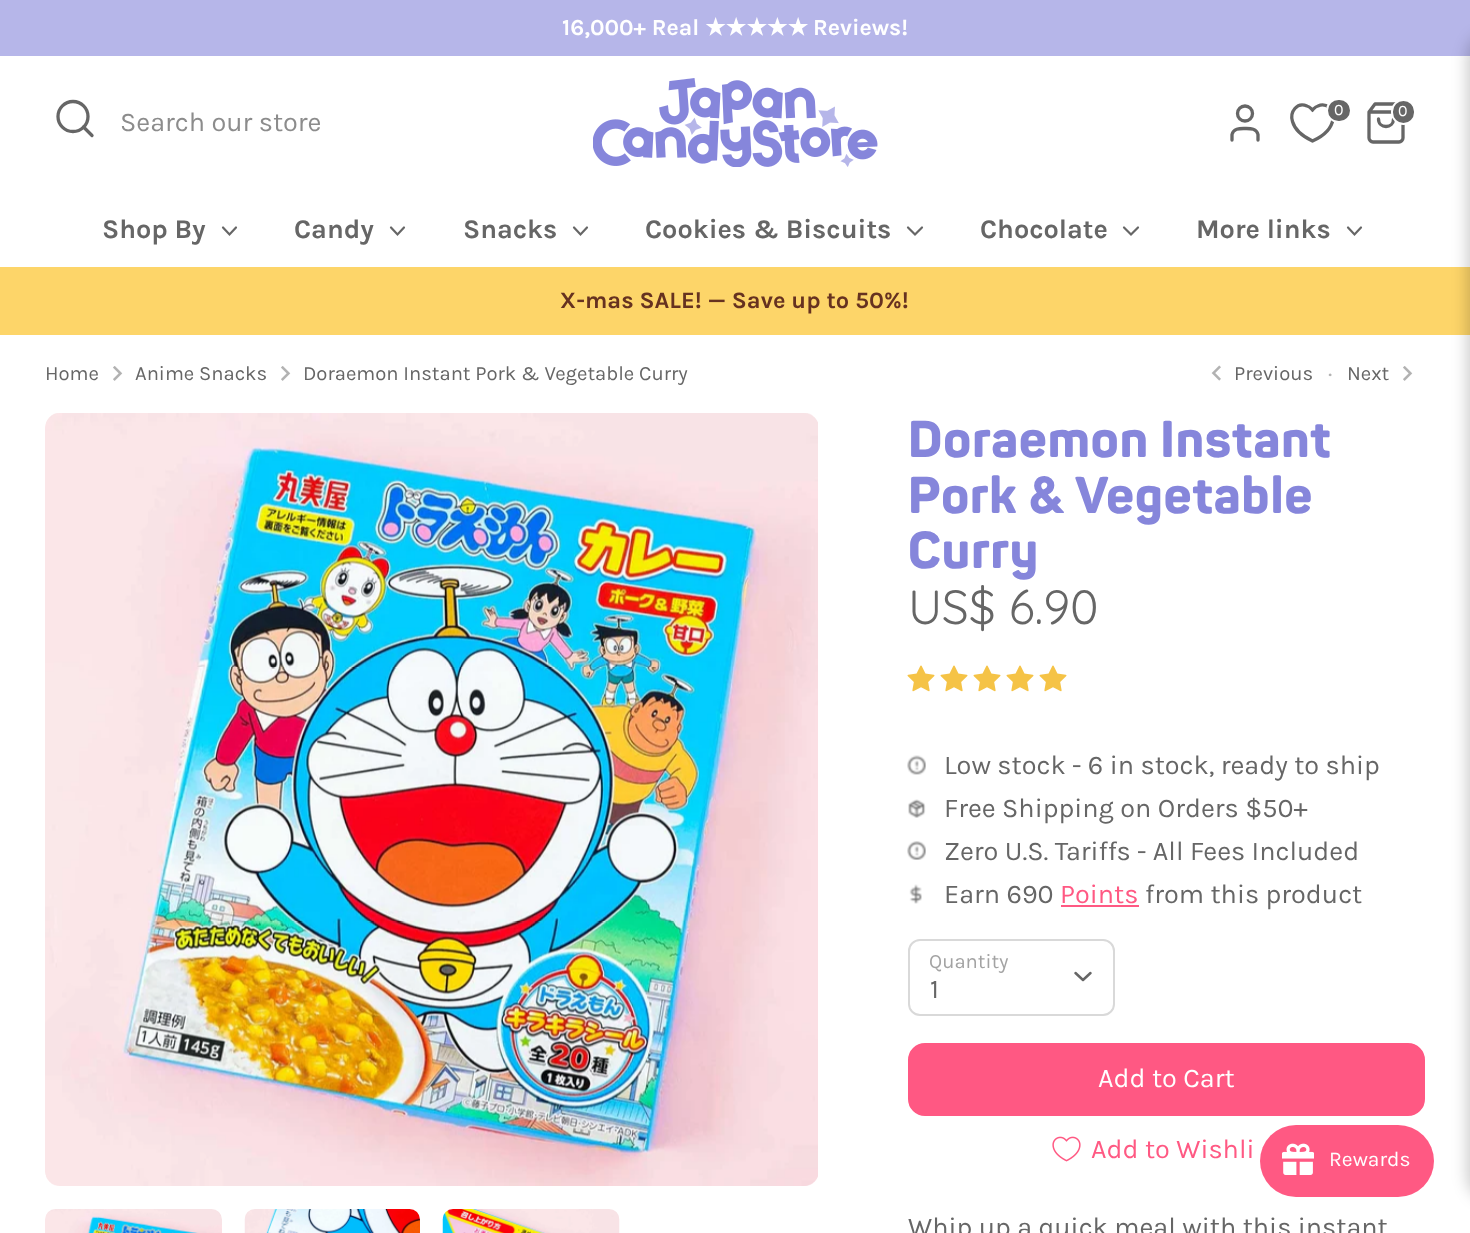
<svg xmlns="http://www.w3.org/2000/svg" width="1470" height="1233">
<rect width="100%" height="100%" fill="#fff"/>
<rect width="1470" height="56" fill="#b6b6e9"/>
<text x="562" y="35" style="font-family:Karla;font-size:23px;font-weight:bold;fill:#fff">16,000+ Real</text>
<text x="705" y="35" style="font-family:DejaVu Sans;font-size:23px;font-weight:bold;fill:#fff">★★★★★</text>
<text x="813" y="35" style="font-family:Karla;font-size:23px;font-weight:bold;fill:#fff">Reviews!</text>
<image x="593" y="78" width="285" height="89" href="media/1.png"/>
<path d="M1258 140v-5.5c-1.5-6.5-8-6-13-6c-5 0-11.5-.5-13 6v5.5" fill="none" stroke="#666" stroke-width="3.3" stroke-linecap="round" stroke-linejoin="round"/>
<circle cx="1245" cy="113.5" r="7.5" fill="none" stroke="#666" stroke-width="3.3"/>
<path d="M1312.5 141c-8.5-4-17.5-10.5-20-19.5c-3-9.5 4.5-20 14.5-15.5c2.5 .5 4 2.5 5.5 4c1.5-1.5 3-3.5 5.5-4c8.5-4 16.5 4.5 15 13c-1.5 10.5-11.5 18-20.5 22z" fill="none" stroke="#666" stroke-width="3.3"/>
<rect x="1327" y="99" width="24" height="23" rx="11.5" fill="#666" stroke="#fff" stroke-width="2"/>
<text x="1334" y="115" style="font-family:Karla;font-size:16px;fill:#fff">0</text>
<path d="M1375 104l-6 8v26c0 2 2 4 4 4h26c2 0 4-2 4-4v-26l-6-8zm-6 8h34m-9.5 7c0 10-15 10-15 0" fill="none" stroke="#666" stroke-width="3.3" stroke-linecap="round" stroke-linejoin="round"/>
<rect x="1392" y="100" width="23" height="24" rx="11.5" fill="#666" stroke="#fff" stroke-width="2"/>
<text x="1398" y="116" style="font-family:Karla;font-size:16px;fill:#fff">0</text>
<rect y="267" width="1470" height="68" fill="#fdd569"/>
<rect x="1467" y="33" width="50" height="1167" rx="24" fill="#00000033" filter="blur(7.5px)"/>
<circle cx="73" cy="116.5" r="15" fill="none" stroke="#666" stroke-width="3.3"/>
<path d="M92 135.5l-8.5-8.5" fill="none" stroke="#666" stroke-width="3.3" stroke-linecap="round" stroke-linejoin="round"/>
<text x="120" y="131" style="font-family:Karla;font-size:27px;fill:#8c8c8c">Search our store</text>
<text x="102" y="238" style="font-family:Karla;font-size:27px;font-weight:bold;fill:#666">Shop By</text>
<path d="M223 227.5l6.5 7l6.5-7" fill="none" stroke="#666" stroke-width="2.2" stroke-linecap="round"/>
<text x="294" y="238" style="font-family:Karla;font-size:27px;font-weight:bold;fill:#666">Candy</text>
<path d="M391 227.5l6.5 7l6.5-7" fill="none" stroke="#666" stroke-width="2.2" stroke-linecap="round"/>
<text x="463" y="238" style="font-family:Karla;font-size:27px;font-weight:bold;fill:#666">Snacks</text>
<path d="M574 227.5l6.5 7l6.5-7" fill="none" stroke="#666" stroke-width="2.2" stroke-linecap="round"/>
<text x="645" y="238" style="font-family:Karla;font-size:27px;font-weight:bold;fill:#666">Cookies &amp; Biscuits</text>
<path d="M908 227.5l7 7l7-7" fill="none" stroke="#666" stroke-width="2.2" stroke-linecap="round"/>
<text x="980" y="238" style="font-family:Karla;font-size:27px;font-weight:bold;fill:#666">Chocolate</text>
<path d="M1124 227.5l7 7l7-7" fill="none" stroke="#666" stroke-width="2.2" stroke-linecap="round"/>
<text x="1196" y="238" style="font-family:Karla;font-size:27px;font-weight:bold;fill:#666">More links</text>
<path d="M1348 227.5l6.5 7l6.5-7" fill="none" stroke="#666" stroke-width="2.2" stroke-linecap="round"/>
<text x="560" y="308" style="font-family:Karla;font-size:23.6px;font-weight:bold;fill:#663220">X-mas SALE! — Save up to 50%!</text>
<text x="45" y="380" style="font-family:Karla;font-size:20.25px;fill:#666">Home</text>
<image x="113" y="366" width="10" height="15" href="media/2.png"/>
<text x="135" y="380" style="font-family:Karla;font-size:20.25px;fill:#666">Anime Snacks</text>
<image x="281" y="366" width="10" height="15" href="media/2.png"/>
<text x="303" y="380" style="font-family:Karla;font-size:20.25px;fill:#666">Doraemon Instant Pork &amp; Vegetable Curry</text>
<image x="1211" y="365" width="10" height="16" href="media/3.png"/>
<text x="1234" y="380" style="font-family:Karla;font-size:20.25px;fill:#666">Previous</text>
<text x="1328" y="381" style="font-family:Karla;font-size:24px;fill:#b3b3b3">·</text>
<text x="1347" y="380" style="font-family:Karla;font-size:20.25px;fill:#666">Next</text>
<image x="1403" y="366" width="10" height="15" href="media/2.png"/>
<image x="45" y="413" width="773" height="773" href="media/4.png"/>
<image x="45" y="1209" width="177" height="24" href="media/5.png"/>
<image x="244" y="1209" width="176" height="24" href="media/6.png"/>
<image x="442" y="1209" width="178" height="24" href="media/7.png"/>
<text x="908" y="457" style="font-family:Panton;font-size:51px;font-weight:800;letter-spacing:1px;fill:#8686db">Doraemon Instant</text>
<text x="908" y="513" style="font-family:Panton;font-size:51px;font-weight:800;letter-spacing:1px;fill:#8686db">Pork &amp; Vegetable</text>
<text x="908" y="568" style="font-family:Panton;font-size:51px;font-weight:800;letter-spacing:1px;fill:#8686db">Curry</text>
<text x="908" y="624" style="font-family:Quicksand;font-size:48px;fill:#666">US$ 6.90</text>
<image x="907" y="665" width="28" height="27" href="media/8.png"/>
<image x="940" y="665" width="28" height="27" href="media/8.png"/>
<image x="973" y="665" width="28" height="27" href="media/8.png"/>
<image x="1006" y="665" width="28" height="27" href="media/8.png"/>
<image x="1039" y="665" width="28" height="27" href="media/8.png"/>
<image x="907" y="755" width="19" height="20" href="media/9.png"/>
<text x="944" y="774" style="font-family:Karla;font-size:27px;fill:#666">Low stock - 6 in stock, ready to ship</text>
<image x="908" y="799" width="18" height="19" href="media/10.png"/>
<text x="944" y="817" style="font-family:Karla;font-size:27px;fill:#666">Free Shipping on Orders $50+</text>
<image x="907" y="841" width="19" height="19" href="media/11.png"/>
<text x="944" y="860" style="font-family:Karla;font-size:27px;fill:#666">Zero U.S. Tariffs - All Fees Included</text>
<image x="909" y="884" width="13" height="20" href="media/12.png"/>
<text x="944" y="903" style="font-family:Karla;font-size:27px;fill:#666">Earn 690</text>
<text x="1060" y="903" style="font-family:Karla;font-size:27px;fill:#ff5983">Points</text>
<rect x="1061" y="905" width="78" height="2" fill="#ff5983"/>
<text x="1145" y="903" style="font-family:Karla;font-size:27px;fill:#666">from this product</text>
<text x="929" y="968" style="font-family:Karla;font-size:20.25px;fill:#a3a3a3">Quantity</text>
<rect x="909" y="940" width="205" height="75" rx="11" fill="none" stroke="#d9d9d9" stroke-width="2"/>
<path d="M1075.5 973l7.5 7l7.5-7" fill="none" stroke="#666" stroke-width="2.5" stroke-linecap="round" stroke-linejoin="round"/>
<text x="930" y="998" style="font-family:Karla;font-size:27px;fill:#666">1</text>
<rect x="909" y="1044" width="515" height="71" rx="16" fill="none" stroke="#ff5883" stroke-width="2"/>
<rect x="909" y="1044" width="515" height="71" rx="15" fill="#ff5883"/>
<text x="1098" y="1087" style="font-family:Karla;font-size:27px;fill:#fff">Add to Cart</text>
<image x="1052" y="1136" width="29" height="26" href="media/13.png"/>
<text x="1091" y="1158" style="font-family:Karla;font-size:27px;fill:#ff5983">Add to Wishli</text>
<text x="908" y="1236" style="font-family:Karla;font-size:27px;fill:#666">Whip up a quick meal with this instant</text>
<rect x="1260" y="1125" width="174" height="72" rx="36" fill="#ff5983"/>
<image x="1282" y="1143" width="32" height="32" href="media/14.png"/>
<text x="1329" y="1166" style="font-family:Karla;font-size:21px;fill:#fff">Rewards</text>
</svg>
